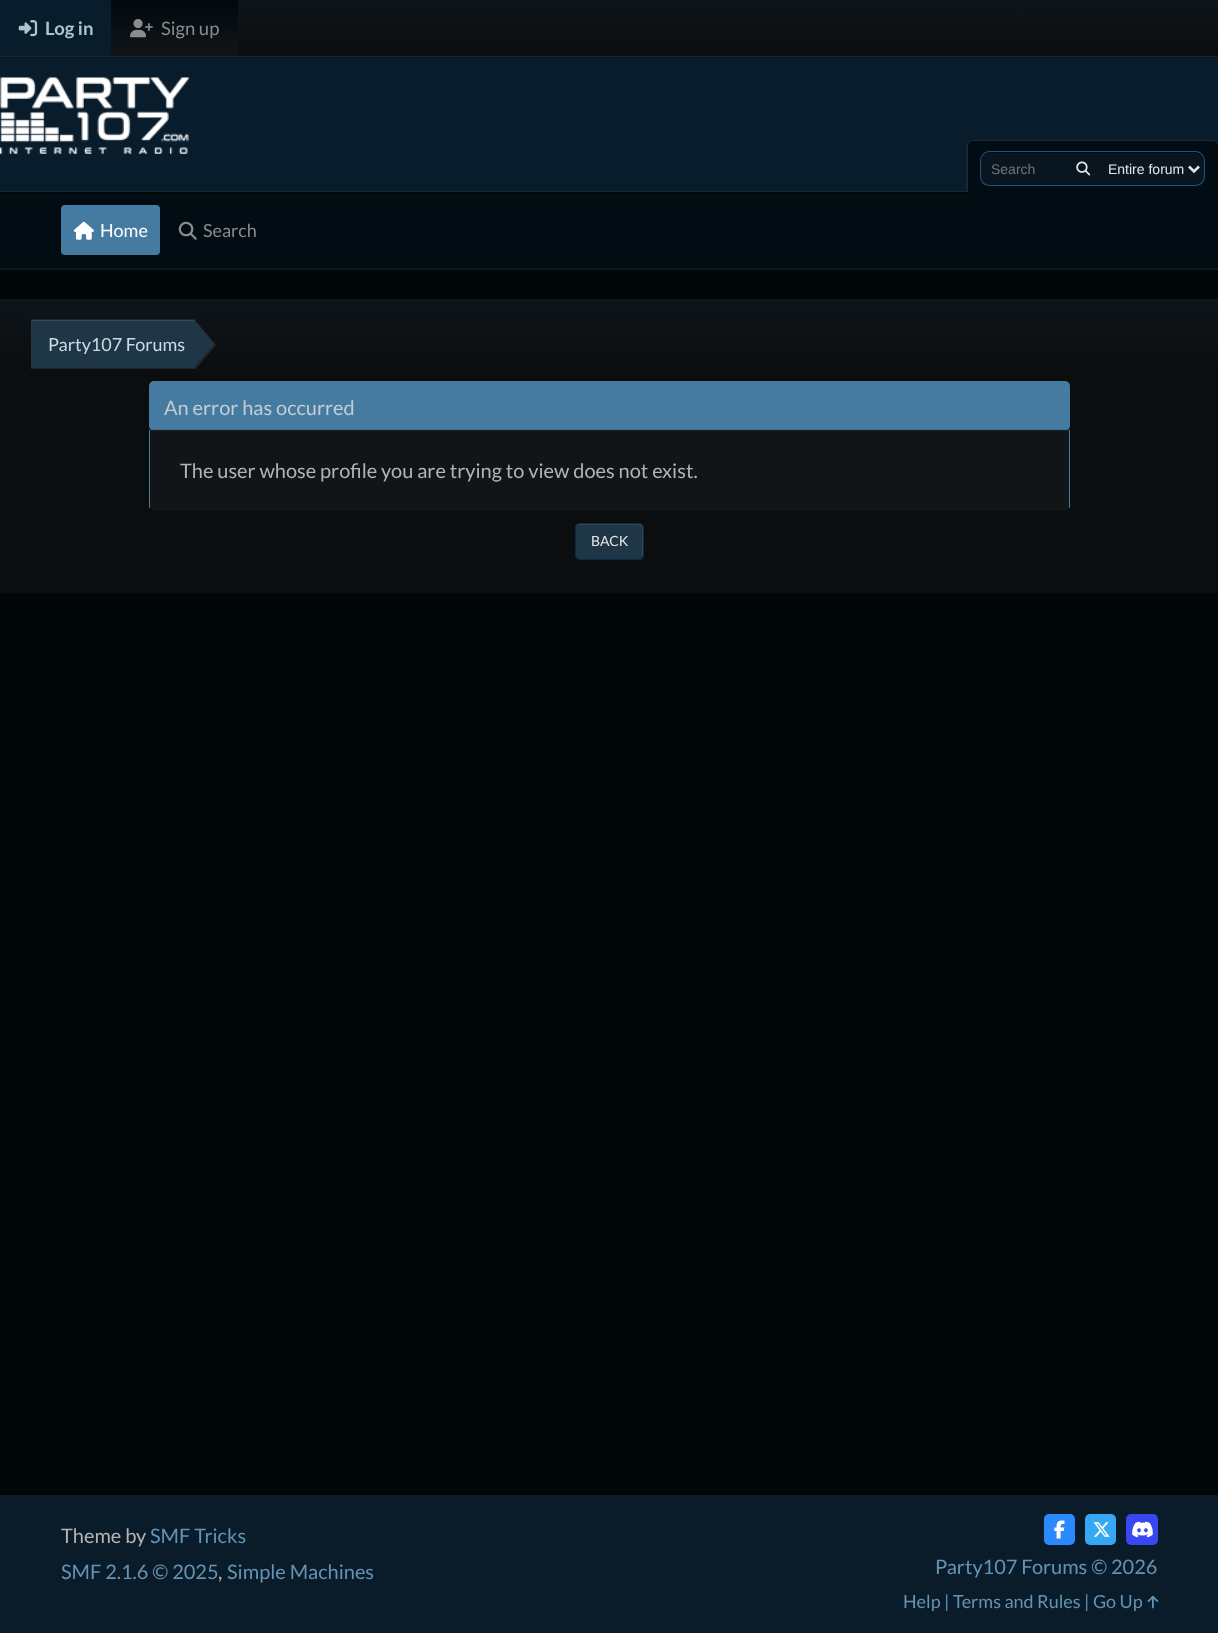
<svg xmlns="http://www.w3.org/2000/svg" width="1218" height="1633">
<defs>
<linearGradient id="g1" gradientUnits="userSpaceOnUse" x1="609" y1="0" x2="609" y2="56"><stop offset="0" stop-color="#0f151a"/><stop offset="1" stop-color="#0b0d0f"/></linearGradient>
<linearGradient id="g2" gradientUnits="userSpaceOnUse" x1="609" y1="56" x2="609" y2="113"><stop offset="0" stop-color="#0f151a"/><stop offset="1" stop-color="#0b0d0f"/></linearGradient>
<linearGradient id="g3" gradientUnits="userSpaceOnUse" x1="174" y1="0" x2="174" y2="56"><stop offset="0" stop-color="#00090f"/><stop offset="1" stop-color="#111518"/></linearGradient>
<linearGradient id="g4" gradientUnits="userSpaceOnUse" x1="609" y1="299" x2="609" y2="374"><stop offset="0" stop-color="#0f151a"/><stop offset="1" stop-color="#0b0d0f"/></linearGradient>
</defs>
<rect width="100%" height="100%" fill="#010609"/>
<rect x="238" width="980" height="56" fill="url(#g1)"/>
<rect y="57" width="1218" height="1" fill="url(#g2)"/>
<rect y="56" width="1218" height="1" fill="#152937"/>
<rect width="111" height="56" fill="#081c2b"/>
<image x="18" y="20" width="20" height="17" href="media/1.png"/>
<text x="45" y="35" style="font-family:Lato;font-size:18.5px;font-weight:bold;fill:#afc2cf">Log in</text>
<rect x="111" width="127" height="56" fill="url(#g3)"/>
<image x="130" y="19" width="23" height="19" href="media/2.png"/>
<text x="161" y="35" style="font-family:Lato;font-size:18.5px;fill:#8c8c8c">Sign up</text>
<rect y="58" width="1218" height="133" fill="#081c2b"/>
<rect y="191" width="966" height="1" fill="#152937"/>
<image x="0" y="77" width="189" height="77" href="media/3.png"/>
<rect y="195" width="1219" height="75" fill="#aaaaaa1a" filter="blur(0.5px)"/>
<path d="M973 141h240c3 0 5 2 5 5v47h-250v-47c0-3 2-5 5-5z" fill="#010c13"/>
<path d="M972 140h240c4 0 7 3 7 6v46h-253v-46c0-3 3-6 6-6zm0 1h240c3 0 6 2 6 5v46h-250v-46c0-3 2-5 4-5z" fill="#152937" fill-rule="evenodd"/>
<path d="M990 153h74v32h-74c-5 0-9-4-9-9v-14c0-5 4-9 9-9z" fill="#0a161f"/>
<path d="M990 151h74v35h-74c-6 0-10-4-10-10v-15c0-5 4-10 10-10zm0 1h74v33h-74c-5 0-9-4-9-9v-15c0-5 4-9 9-9z" fill="#1b557e" fill-rule="evenodd"/>
<text x="991" y="174" style="font-family:Liberation Sans;font-size:14px;fill:#757575">Search</text>
<rect x="1064" y="153" width="39" height="32" fill="#0a161f"/>
<rect x="1064" y="151" width="39" height="1" fill="#1b557e"/>
<rect x="1064" y="185" width="39" height="1" fill="#1b557e"/>
<image x="1076" y="161" width="15" height="15" href="media/4.png"/>
<path d="M1103 153h92c5 0 9 4 9 9v14c0 5-4 9-9 9h-92z" fill="#0a161f"/>
<path d="M1102 151h93c6 0 10 5 10 10v15c0 6-4 10-10 10h-93zm0 1h93c5 0 9 4 9 9v15c0 5-4 9-9 9h-93z" fill="#1b557e" fill-rule="evenodd"/>
<path d="M1189 166.5l5 5l5-5" fill="none" stroke="#e6e6e6" stroke-width="2.5"/>
<text x="1108" y="174" style="font-family:Liberation Sans;font-size:14px;fill:#e6e6e6">Entire forum</text>
<rect y="193" width="1218" height="75" fill="#010c13"/>
<rect x="61" y="205" width="99" height="50" rx="4" fill="#457aa1"/>
<image x="73" y="221" width="21" height="19" href="media/5.png"/>
<text x="100" y="237" style="font-family:Lato;font-size:18px;fill:#fff">Home</text>
<image x="178" y="221" width="19" height="19" href="media/6.png"/>
<text x="203" y="237" style="font-family:Lato;font-size:18px;fill:#8c8c8c">Search</text>
<rect y="299" width="1218" height="75" fill="url(#g4)"/>
<rect x="31" y="320" width="164" height="48" fill="#1f3647"/>
<rect x="31" y="320" width="164" height="1" fill="#354a59"/>
<rect x="31" y="319" width="164" height="1" fill="#192834"/>
<rect x="31" y="368" width="164" height="1" fill="#192834"/>
<path d="M195 370v-50l21 25z" fill="#ffffff1a"/>
<text x="48" y="351" style="font-family:Lato;font-size:18px;fill:#cbdbe6">Party107 Forums</text>
<path d="M195 366v-45l19 23z" fill="#1f3647"/>
<rect y="374" width="1218" height="219" fill="#0b0d0f"/>
<rect x="149" y="381" width="921" height="50" rx="5" fill="#457aa1"/>
<path d="M149 424v2c0 3 2 5 5 5h911c3 0 5-2 5-5v-2c0 3-2 5-5 5h-911c-3 0-5-2-5-5z" fill="#0000001a"/>
<text x="164" y="415" style="font-family:Lato;font-size:20px;fill:#c4cdd4">An error has occurred</text>
<path d="M150 430h919v75c0 3-2 5-4 5h-911c-2 0-4-2-4-5z" fill="#111518"/>
<path d="M150 504v1c0 3 2 5 4 5h911c2 0 3-2 4-4c-1 2-2 3-4 3h-911c-2 0-4-2-4-5z" fill="#6969691a"/>
<rect x="150" y="430" width="919" height="1" fill="#1a1d20"/>
<rect x="1069" y="430" width="1" height="78" fill="#457aa1"/>
<rect x="149" y="430" width="1" height="78" fill="#457aa1"/>
<text x="180" y="478" style="font-family:Lato;font-size:20px;fill:#b3b3b3">The user whose profile you are trying to view does not exist.</text>
<rect x="575" y="523" width="69" height="37" rx="5" fill="#1f3647"/>
<path d="M580 525h59c5 0 3 11 3 13v20c0-1 1-2 1-3v-27c0-2-2-4-4-4h-59c-2 0-4 2-4 4v1c0-2 2-4 4-4z" fill="#354a59"/>
<rect x="575.5" y="523.5" width="68" height="36" rx="4.5" fill="none" stroke="#0a2b43"/>
<text x="591" y="546" style="font-family:Lato;font-size:14px;fill:#e6e6e6">BACK</text>
<rect y="1495" width="1218" height="138" fill="#0a1c29"/>
<text x="61" y="1543" style="font-family:Lato;font-size:20px;fill:#b3b3b3">Theme by</text>
<text x="150" y="1543" style="font-family:Lato;font-size:20px;fill:#6493b4">SMF Tricks</text>
<text x="61" y="1579" style="font-family:Lato;font-size:20px;fill:#6493b4">SMF 2.1.6 © 2025</text>
<text x="218" y="1579" style="font-family:Lato;font-size:20px;fill:#b3b3b3">,</text>
<text x="227" y="1579" style="font-family:Lato;font-size:20px;fill:#6493b4">Simple Machines</text>
<rect x="1044" y="1514" width="31" height="31" rx="5" fill="#2a89fe"/>
<image x="1054" y="1520" width="11" height="19" href="media/7.png"/>
<rect x="1085" y="1514" width="31" height="31" rx="5" fill="#36a7f2"/>
<image x="1093" y="1522" width="17" height="15" href="media/8.png"/>
<rect x="1126" y="1514" width="32" height="31" rx="5" fill="#3847f0"/>
<image x="1132" y="1521" width="21" height="17" href="media/9.png"/>
<text x="935" y="1574" style="font-family:Lato;font-size:20px;fill:#6493b4">Party107 Forums © 2026</text>
<text x="903" y="1608" style="font-family:Lato;font-size:18px;fill:#6493b4">Help | Terms and Rules | Go Up</text>
<image x="1147" y="1595" width="12" height="14" href="media/10.png"/>
</svg>
